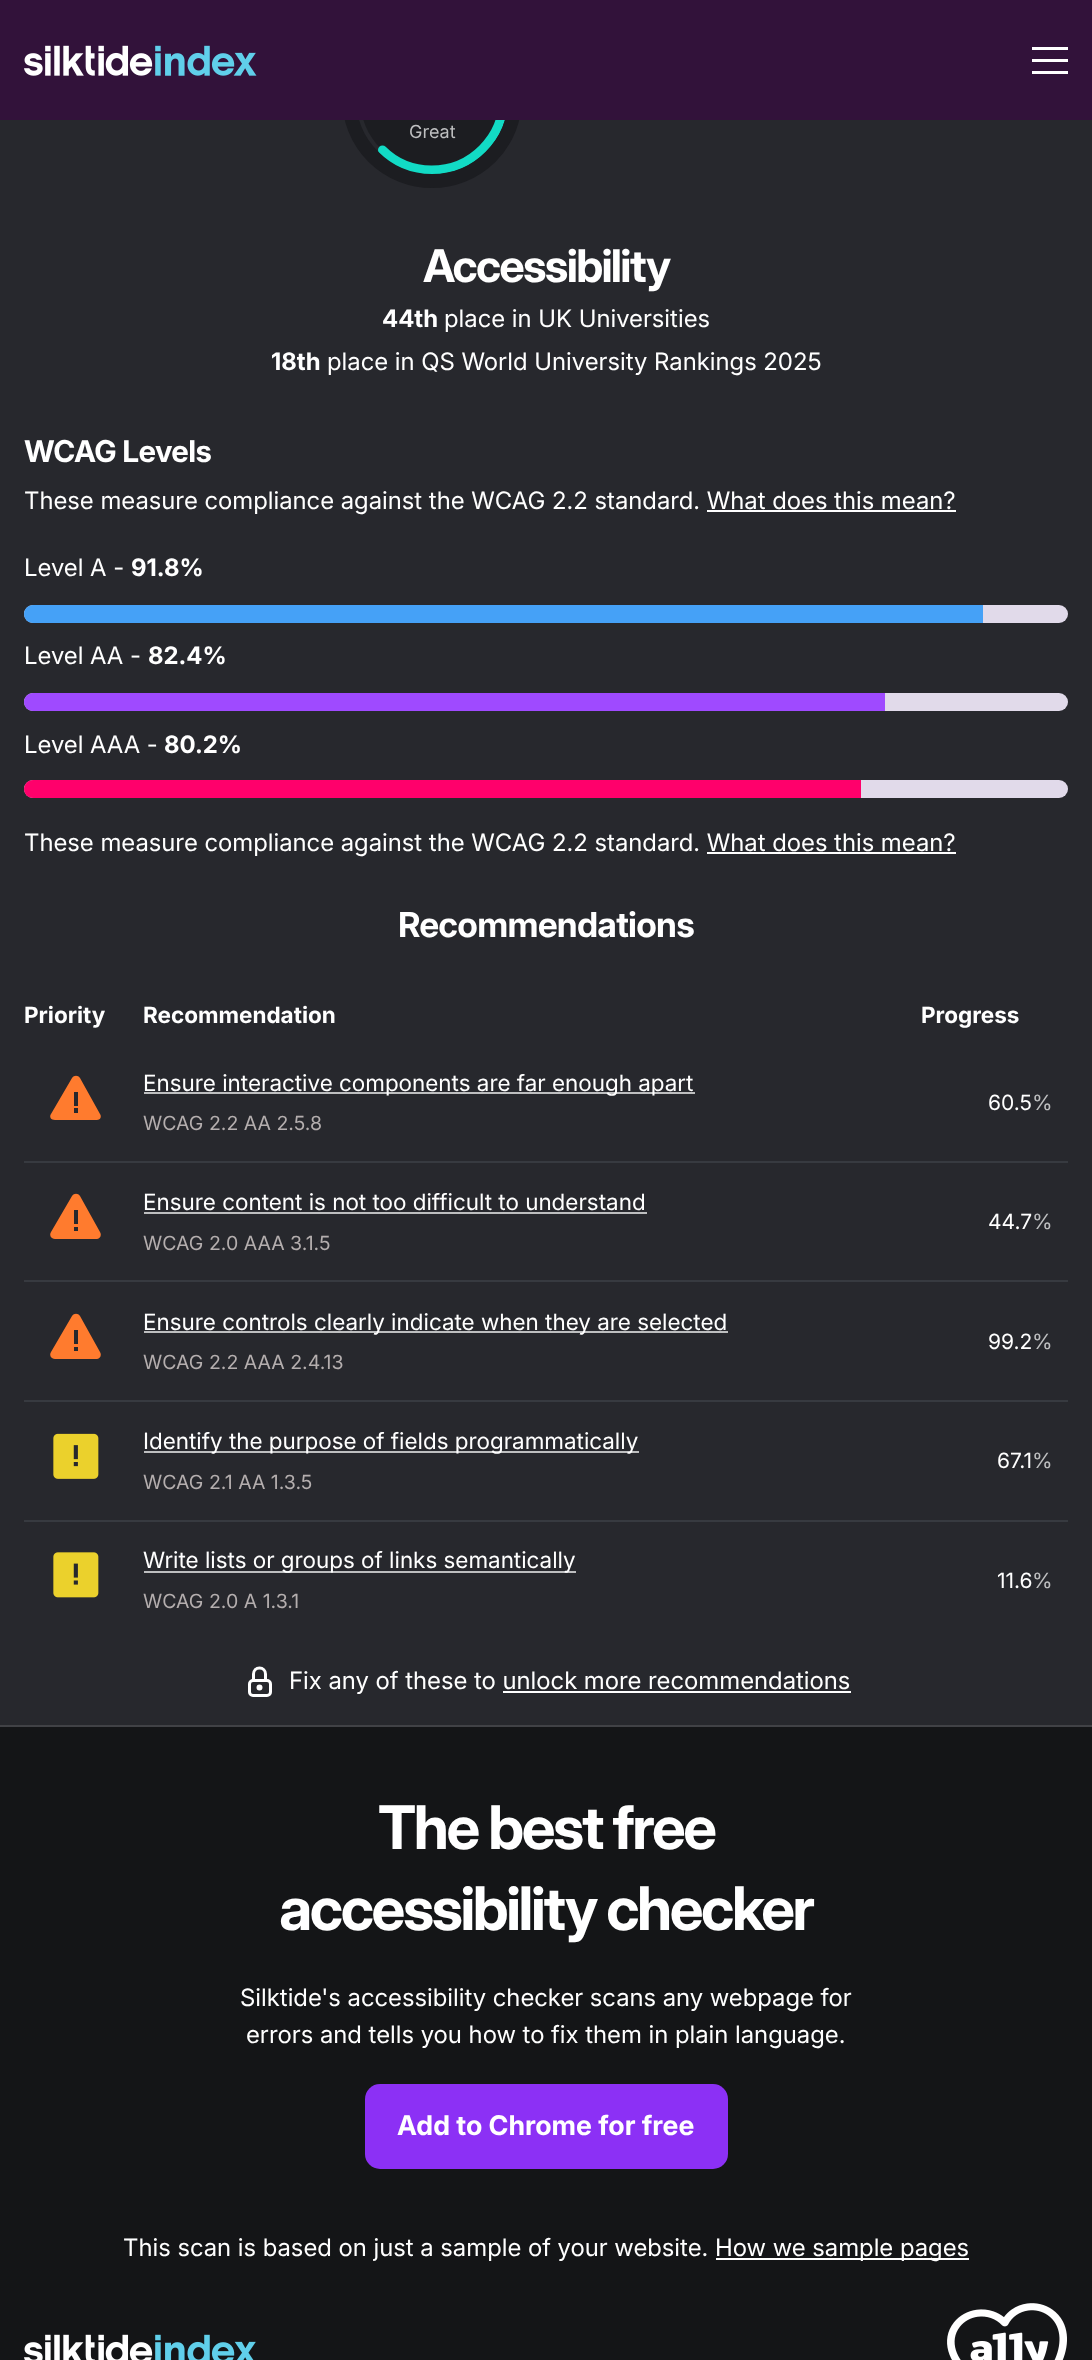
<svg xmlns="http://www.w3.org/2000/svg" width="1092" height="2360">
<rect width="100%" height="100%" fill="#141517"/>
<rect y="120" width="1092" height="1605" fill="#27282d"/>
<path d="M504 98c0-40-33-72-72-72c-40 0-72 32-72 72c0 40 32 72 72 72c39 0 72-32 72-72z" fill="#1c1d21"/>
<path d="M359.5 98c0-40 32.5-72 72-72c40 0 72 32 72 72c0 39.5-32 72-72 72c-19 0-36.5-7.5-49-20" fill="none" stroke="#12dbc5" stroke-width="9" stroke-linecap="round"/>
<text x="409" y="138" style="font-family:'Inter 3';font-size:18px;fill:#bebfc0">Great</text>
<circle cx="432" cy="98" r="83" fill="none" stroke="#1c1d21" stroke-width="14"/>
<rect width="1092" height="120" fill="#32123a"/>
<image x="24" y="45" width="233" height="31" href="media/1.png"/>
<rect x="1032" y="59" width="36" height="3" fill="#fff"/>
<rect x="1032" y="47" width="36" height="3" fill="#fff"/>
<rect x="1032" y="71" width="36" height="3" fill="#fff"/>
<rect y="1725" width="1092" height="2" fill="#414246"/>
<text x="423" y="282" style="font-family:Inter;font-size:45px;font-weight:bold;letter-spacing:-1.75px;fill:#fff">Accessibility</text>
<text x="382" y="327" style="font-family:'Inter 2';font-size:24px;font-weight:bold;fill:#fff">44th</text>
<text x="444" y="327" style="font-family:Inter;font-size:24px;fill:#fff">place in UK Universities</text>
<text x="271" y="370" style="font-family:'Inter 2';font-size:24px;font-weight:bold;fill:#fff">18th</text>
<text x="327" y="370" style="font-family:Inter;font-size:24px;fill:#fff">place in QS World University Rankings 2025</text>
<text x="24" y="462" style="font-family:'Inter 3';font-size:30px;font-weight:bold;letter-spacing:-0.6px;fill:#fff">WCAG Levels</text>
<text x="24" y="509" style="font-family:Inter;font-size:24px;fill:#fff">These measure compliance against the WCAG 2.2 standard. What does this mean?</text>
<rect x="707" y="510" width="249" height="2" fill="#fff"/>
<text x="24" y="576" style="font-family:Inter;font-size:24px;fill:#fff">Level A -</text>
<text x="131" y="576" style="font-family:'Inter 2';font-size:24px;font-weight:bold;fill:#fff">91.8%</text>
<rect x="24" y="605" width="1044" height="18" rx="9" fill="#e1daea"/>
<path d="M33 605h950v18h-950c-5 0-9-4-9-9c0-5 4-9 9-9z" fill="#45a1f7"/>
<text x="24" y="664" style="font-family:Inter;font-size:24px;fill:#fff">Level AA -</text>
<text x="148" y="664" style="font-family:'Inter 2';font-size:24px;font-weight:bold;fill:#fff">82.4%</text>
<rect x="24" y="693" width="1044" height="18" rx="9" fill="#e1daea"/>
<path d="M33 693h852v18h-852c-5 0-9-4-9-9c0-5 4-9 9-9z" fill="#9f4aff"/>
<text x="24" y="753" style="font-family:Inter;font-size:24px;fill:#fff">Level AAA -</text>
<text x="164" y="753" style="font-family:'Inter 2';font-size:24px;font-weight:bold;fill:#fff">80.2%</text>
<rect x="24" y="780" width="1044" height="18" rx="9" fill="#e1daea"/>
<path d="M33 780h828v18h-828c-5 0-9-4-9-9c0-5 4-9 9-9z" fill="#ff006b"/>
<text x="24" y="851" style="font-family:Inter;font-size:24px;fill:#fff">These measure compliance against the WCAG 2.2 standard. What does this mean?</text>
<rect x="707" y="852" width="249" height="2" fill="#fff"/>
<text x="398" y="937" style="font-family:'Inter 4';font-size:34.5px;font-weight:bold;letter-spacing:-0.75px;fill:#fff">Recommendations</text>
<text x="24" y="1023" style="font-family:'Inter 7';font-size:22.5px;font-weight:bold;fill:#fff">Priority</text>
<text x="143" y="1023" style="font-family:'Inter 7';font-size:22.5px;font-weight:bold;fill:#fff">Recommendation</text>
<text x="921" y="1023" style="font-family:'Inter 7';font-size:22.5px;font-weight:bold;fill:#fff">Progress</text>
<path d="M72 1078c2-3 6-3 8 0l20 36c2 3 0 6-3 6h-42c-4 0-6-3-4-6zm2 14h4v14h-4zm4 16h-4v5h4z" fill="#ff7b2e" fill-rule="evenodd"/>
<rect x="144" y="1092" width="551" height="2" fill="#bebfc0"/>
<text x="143" y="1091" style="font-family:'Inter 2';font-size:22.5px;fill:#fff">Ensure interactive components are far enough apart</text>
<text x="143" y="1130" style="font-family:'Inter 3';font-size:19.5px;fill:#b4aeae">WCAG 2.2 AA 2.5.8</text>
<text x="988" y="1110" style="font-family:'Inter 3';font-size:21px;fill:#fff">60.5</text>
<text x="1032" y="1110" style="font-family:'Inter 3';font-size:21px;fill:#bebfc0">%</text>
<path d="M72 1196c2-3 6-3 8 0l20 36c2 3 0 7-3 7h-42c-4 0-6-4-4-7zm2 14h4v14h-4zm4 17h-4v4h4z" fill="#ff7b2e" fill-rule="evenodd"/>
<text x="143" y="1210" style="font-family:'Inter 2';font-size:22.5px;fill:#fff">Ensure content is not too difficult to understand</text>
<rect x="144" y="1212" width="503" height="2" fill="#bebfc0"/>
<text x="143" y="1250" style="font-family:'Inter 3';font-size:19.5px;fill:#b4aeae">WCAG 2.0 AAA 3.1.5</text>
<rect x="24" y="1161" width="1044" height="2" fill="#373a40"/>
<text x="988" y="1229" style="font-family:'Inter 3';font-size:21px;fill:#fff">44.7</text>
<text x="1032" y="1229" style="font-family:'Inter 3';font-size:21px;fill:#bebfc0">%</text>
<path d="M72 1316c2-3 6-3 8 0l20 36c2 3 0 7-3 7h-42c-4 0-6-4-4-7zm2 14h4v14h-4zm4 17h-4v4h4z" fill="#ff7b2e" fill-rule="evenodd"/>
<rect x="144" y="1331" width="584" height="2" fill="#bebfc0"/>
<text x="143" y="1330" style="font-family:'Inter 2';font-size:22.5px;fill:#fff">Ensure controls clearly indicate when they are selected</text>
<text x="143" y="1369" style="font-family:'Inter 3';font-size:19.5px;fill:#b4aeae">WCAG 2.2 AAA 2.4.13</text>
<rect x="24" y="1280" width="1044" height="2" fill="#373a40"/>
<text x="988" y="1349" style="font-family:'Inter 3';font-size:21px;fill:#fff">99.2</text>
<text x="1032" y="1349" style="font-family:'Inter 3';font-size:21px;fill:#bebfc0">%</text>
<image x="53" y="1433" width="46" height="46" href="media/2.png"/>
<rect x="144" y="1451" width="495" height="2" fill="#bebfc0"/>
<text x="143" y="1449" style="font-family:'Inter 2';font-size:22.5px;fill:#fff">Identify the purpose of fields programmatically</text>
<text x="143" y="1489" style="font-family:'Inter 3';font-size:19.5px;fill:#b4aeae">WCAG 2.1 AA 1.3.5</text>
<rect x="24" y="1400" width="1044" height="2" fill="#373a40"/>
<text x="997" y="1468" style="font-family:'Inter 3';font-size:21px;fill:#fff">67.1</text>
<text x="1032" y="1468" style="font-family:'Inter 3';font-size:21px;fill:#bebfc0">%</text>
<image x="53" y="1552" width="46" height="46" href="media/3.png"/>
<rect x="144" y="1571" width="432" height="2" fill="#bebfc0"/>
<text x="143" y="1568" style="font-family:'Inter 2';font-size:22.5px;fill:#fff">Write lists or groups of links semantically</text>
<text x="143" y="1608" style="font-family:'Inter 3';font-size:19.5px;fill:#b4aeae">WCAG 2.0 A 1.3.1</text>
<rect x="24" y="1520" width="1044" height="2" fill="#373a40"/>
<text x="997" y="1588" style="font-family:'Inter 3';font-size:21px;fill:#fff">11.6</text>
<text x="1032" y="1588" style="font-family:'Inter 3';font-size:21px;fill:#bebfc0">%</text>
<rect x="249.5" y="1680.5" width="21" height="15" rx="3.5" fill="none" stroke="#fff" stroke-width="3"/>
<circle cx="259.5" cy="1687.5" r="1.5" fill="none" stroke="#fff" stroke-width="3"/>
<path d="M253.5 1680v-6c0-3.5 2.5-6 6-6c3.5 0 6 2.5 6 6v6" fill="none" stroke="#fff" stroke-width="3" stroke-linecap="round" stroke-linejoin="round"/>
<text x="289" y="1689" style="font-family:Inter;font-size:24px;fill:#fff">Fix any of these to unlock more recommendations</text>
<rect x="503" y="1691" width="348" height="2" fill="#fff"/>
<text x="378" y="1849" style="font-family:'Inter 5';font-size:60px;font-weight:bold;letter-spacing:-2.4px;fill:#fff">The best free</text>
<text x="279" y="1930" style="font-family:'Inter 5';font-size:60px;font-weight:bold;letter-spacing:-2.4px;fill:#fff">accessibility checker</text>
<text x="240" y="2006" style="font-family:Inter;font-size:24px;fill:#fff">Silktide's accessibility checker scans any webpage for</text>
<text x="246" y="2043" style="font-family:Inter;font-size:24px;fill:#fff">errors and tells you how to fix them in plain language.</text>
<rect x="365" y="2084" width="363" height="85" rx="15" fill="#8c30f5"/>
<text x="397" y="2135" style="font-family:'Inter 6';font-size:27px;font-weight:bold;fill:#fff">Add to Chrome for free</text>
<text x="123" y="2256" style="font-family:Inter;font-size:24px;fill:#fff">This scan is based on just a sample of your website.</text>
<rect x="716" y="2258" width="253" height="2" fill="#fff"/>
<text x="715" y="2256" style="font-family:Inter;font-size:24px;fill:#fff">How we sample pages</text>
<image x="24" y="2334" width="232" height="26" href="media/4.png"/>
<image x="947" y="2303" width="120" height="57" href="media/5.png"/>
</svg>
